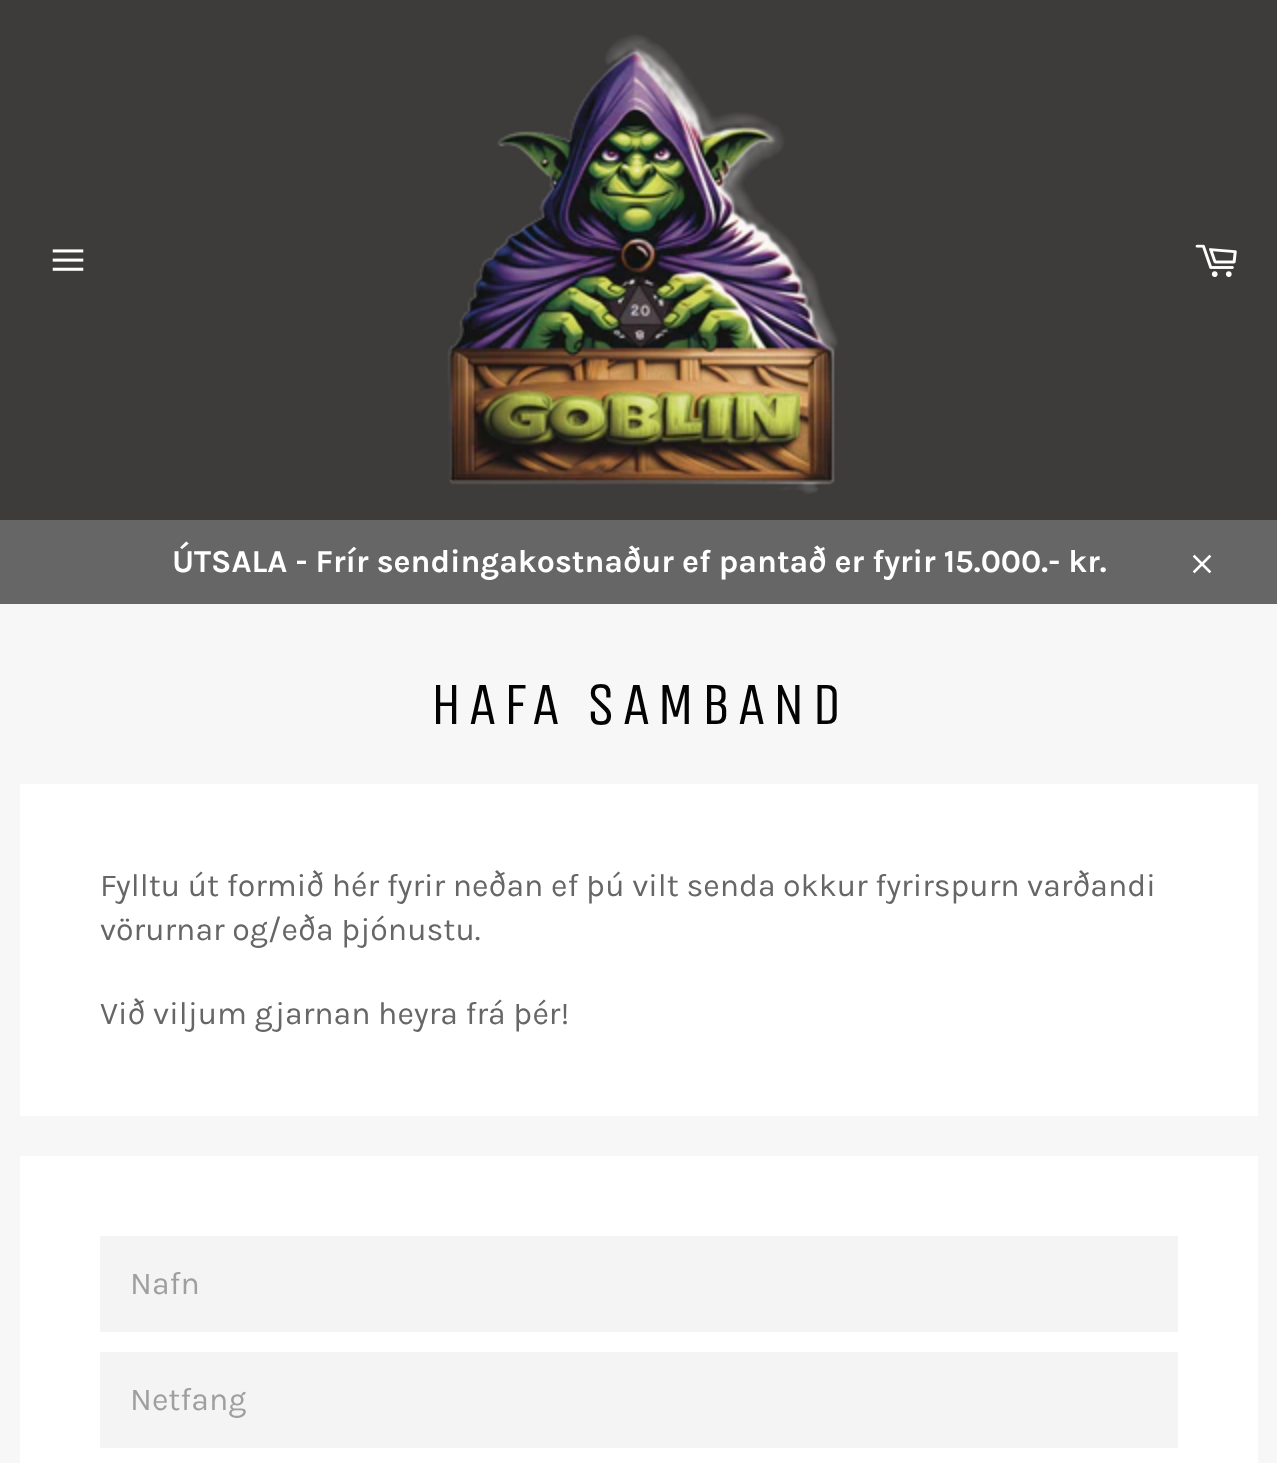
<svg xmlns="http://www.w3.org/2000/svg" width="1277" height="1463">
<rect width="100%" height="100%" fill="#f7f7f7"/>
<rect width="1277" height="520" fill="#3e3b3b"/>
<image x="52" y="249" width="32" height="22" href="media/1.png"/>
<image x="447" y="34" width="391" height="460" href="media/2.png"/>
<image x="1195" y="244" width="42" height="33" href="media/3.png"/>
<rect y="520" width="1277" height="84" fill="#666"/>
<text x="172" y="572" style="font-family:Karla;font-size:32px;font-weight:bold;fill:#fff">ÚTSALA - Frír sendingakostnaður ef pantað er fyrir 15.000.- kr.</text>
<image x="1192" y="554" width="20" height="20" href="media/4.png"/>
<text x="430" y="724" style="font-family:Unica One;font-size:60px;letter-spacing:6px;fill:#030303">HAFA SAMBAND</text>
<rect x="20" y="784" width="1238" height="332" fill="#fff"/>
<text x="100" y="896" style="font-family:Karla;font-size:32px;fill:#666">Fylltu út formið hér fyrir neðan ef þú vilt senda okkur fyrirspurn varðandi</text>
<text x="100" y="940" style="font-family:Karla;font-size:32px;fill:#666">vörurnar og/eða þjónustu.</text>
<text x="100" y="1024" style="font-family:Karla;font-size:32px;fill:#666">Við viljum gjarnan heyra frá þér!</text>
<rect x="20" y="1156" width="1238" height="307" fill="#fff"/>
<rect x="100" y="1236" width="1078" height="96" fill="#f4f4f4"/>
<text x="130" y="1294" style="font-family:Karla;font-size:32px;fill:#9f9f9f">Nafn</text>
<rect x="100" y="1352" width="1078" height="96" fill="#f4f4f4"/>
<text x="130" y="1410" style="font-family:Karla;font-size:32px;fill:#9f9f9f">Netfang</text>
</svg>
